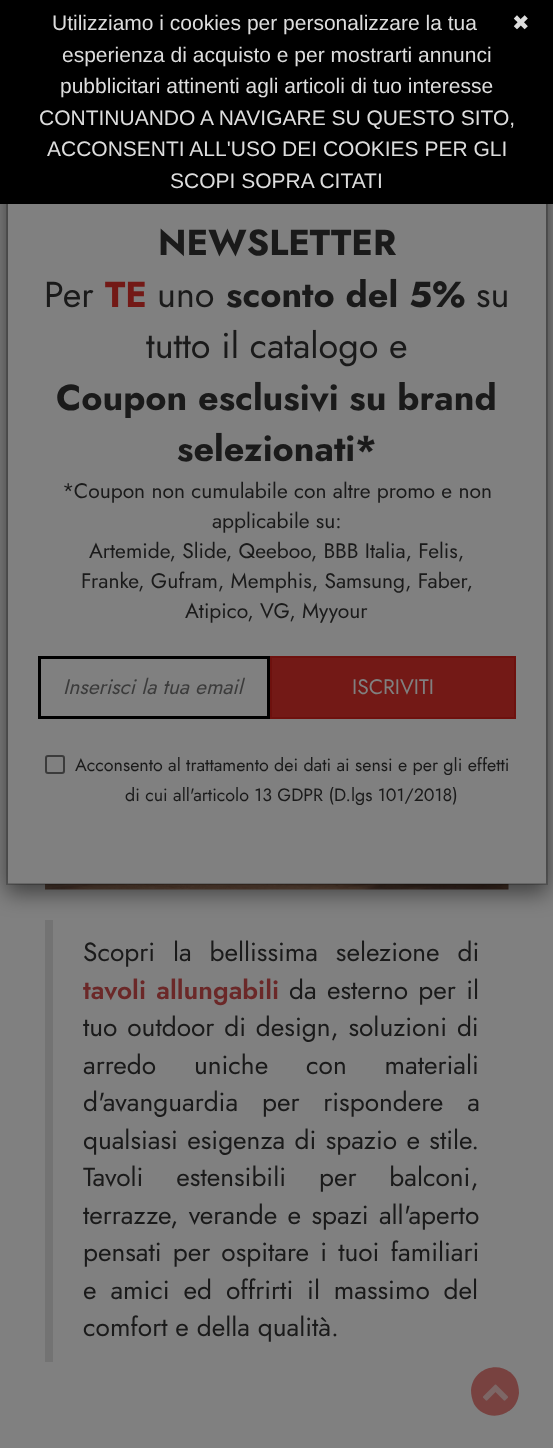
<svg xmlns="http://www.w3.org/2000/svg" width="553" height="1448">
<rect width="100%" height="100%" fill="#808080"/>
<image x="45" y="884" width="464" height="6" href="media/1.png"/>
<rect x="45" y="920" width="8" height="442" fill="#737373"/>
<rect x="6" y="143" width="542" height="750" fill="#00000080" filter="blur(11px)"/>
<rect x="8" y="204" width="538" height="680" fill="#808080"/>
<rect x="7" y="136" width="540" height="748" fill="none" stroke="#00000033" stroke-width="2"/>
<rect width="553" height="204" fill="#000"/>
<text x="52" y="30" style="font-family:Liberation Sans;font-size:21px;fill:#ddd">Utilizziamo i cookies per personalizzare la tua</text>
<text x="512" y="30" style="font-family:DejaVu Sans;font-size:21px;fill:#ddd">✖</text>
<text x="62" y="62" style="font-family:Liberation Sans;font-size:21px;fill:#ddd">esperienza di acquisto e per mostrarti annunci</text>
<text x="60" y="93" style="font-family:Liberation Sans;font-size:21px;fill:#ddd">pubblicitari attinenti agli articoli di tuo interesse</text>
<text x="39" y="125" style="font-family:Liberation Sans;font-size:21px;fill:#ddd">CONTINUANDO A NAVIGARE SU QUESTO SITO,</text>
<text x="47" y="156" style="font-family:Liberation Sans;font-size:21px;fill:#ddd">ACCONSENTI ALL'USO DEI COOKIES PER GLI</text>
<text x="170" y="188" style="font-family:Liberation Sans;font-size:21px;fill:#ddd">SCOPI SOPRA CITATI</text>
<text x="158" y="255" style="font-family:Jost;font-size:36px;font-weight:bold;fill:#1a1a1a">NEWSLETTER</text>
<text x="44" y="307" style="font-family:Jost;font-size:36px;fill:#1a1a1a">Per</text>
<text x="105" y="307" style="font-family:Jost;font-size:36px;font-weight:bold;fill:#731916">TE</text>
<text x="157" y="307" style="font-family:Jost;font-size:36px;fill:#1a1a1a">uno</text>
<text x="226" y="307" style="font-family:Jost;font-size:36px;font-weight:bold;fill:#1a1a1a">sconto del 5%</text>
<text x="476" y="307" style="font-family:Jost;font-size:36px;fill:#1a1a1a">su</text>
<text x="146" y="358" style="font-family:Jost;font-size:36px;fill:#1a1a1a">tutto il catalogo e</text>
<text x="56" y="410" style="font-family:Jost;font-size:36px;font-weight:bold;fill:#1a1a1a">Coupon esclusivi su brand</text>
<text x="177" y="461" style="font-family:Jost;font-size:36px;font-weight:bold;fill:#1a1a1a">selezionati*</text>
<text x="62" y="498" style="font-family:Jost;font-size:21px;fill:#1a1a1a">*Coupon non cumulabile con altre promo e non</text>
<text x="212" y="528" style="font-family:Jost;font-size:21px;fill:#1a1a1a">applicabile su:</text>
<text x="89" y="558" style="font-family:Jost;font-size:21px;fill:#1a1a1a">Artemide, Slide, Qeeboo, BBB Italia, Felis,</text>
<text x="81" y="588" style="font-family:Jost;font-size:21px;fill:#1a1a1a">Franke, Gufram, Memphis, Samsung, Faber,</text>
<text x="185" y="618" style="font-family:Jost;font-size:21px;fill:#1a1a1a">Atipico, VG, Myyour</text>
<rect x="39.5" y="657.5" width="229" height="60" fill="none" stroke="#000" stroke-width="3"/>
<text x="63" y="694" style="font-family:Jost;font-size:21px;font-style:italic;fill:#3b3b3b">Inserisci la tua email</text>
<rect x="271" y="657" width="244" height="61" fill="#731916" stroke="#6e110e" stroke-width="2"/>
<text x="352" y="694" style="font-family:Jost;font-size:21px;fill:#808080">ISCRIVITI</text>
<rect x="46" y="756" width="18" height="17" rx="2" fill="none" stroke="#3b3b3b" stroke-width="2"/>
<text x="75" y="771" style="font-family:Jost;font-size:17.85px;fill:#1a1a1a">Acconsento al trattamento dei dati ai sensi e per gli effetti</text>
<text x="125" y="801" style="font-family:Jost;font-size:17.85px;fill:#1a1a1a">di cui all'articolo 13 GDPR (D.lgs 101/2018)</text>
<text x="83" y="961" word-spacing="10" style="font-family:Jost;font-size:26.25px;fill:#1a1a1a">Scopri la bellissima selezione di</text>
<text x="83" y="999" word-spacing="2.5" style="font-family:Jost;font-size:26.25px;font-weight:600;fill:#6b2828">tavoli allungabili</text>
<text x="289" y="999" word-spacing="2.5" style="font-family:Jost;font-size:26.25px;fill:#1a1a1a">da esterno per il</text>
<text x="83" y="1036" word-spacing="2" style="font-family:Jost;font-size:26.25px;fill:#1a1a1a">tuo outdoor di design, soluzioni di</text>
<text x="83" y="1074" word-spacing="30" style="font-family:Jost;font-size:26.25px;fill:#1a1a1a">arredo uniche con materiali</text>
<text x="83" y="1111" word-spacing="16" style="font-family:Jost;font-size:26.25px;fill:#1a1a1a">d'avanguardia per rispondere a</text>
<text x="83" y="1149" word-spacing="1.5" style="font-family:Jost;font-size:26.25px;fill:#1a1a1a">qualsiasi esigenza di spazio e stile.</text>
<text x="83" y="1186" word-spacing="25" style="font-family:Jost;font-size:26.25px;fill:#1a1a1a">Tavoli estensibili per balconi,</text>
<text x="83" y="1224" word-spacing="2.5" style="font-family:Jost;font-size:26.25px;fill:#1a1a1a">terrazze, verande e spazi all'aperto</text>
<text x="83" y="1261" word-spacing="3.25" style="font-family:Jost;font-size:26.25px;fill:#1a1a1a">pensati per ospitare i tuoi familiari</text>
<text x="83" y="1299" word-spacing="6" style="font-family:Jost;font-size:26.25px;fill:#1a1a1a">e amici ed offrirti il massimo del</text>
<text x="83" y="1336" style="font-family:Jost;font-size:26.25px;fill:#1a1a1a">comfort e della qualità.</text>
<path d="M516 1379c2 5 3 9 3 14c-2 24-33 31-45 11c-2-5-3-9-3-14c2-24 33-31 45-11z" fill="#784240"/>
<image x="483" y="1384" width="25" height="17" href="media/2.png"/>
</svg>
